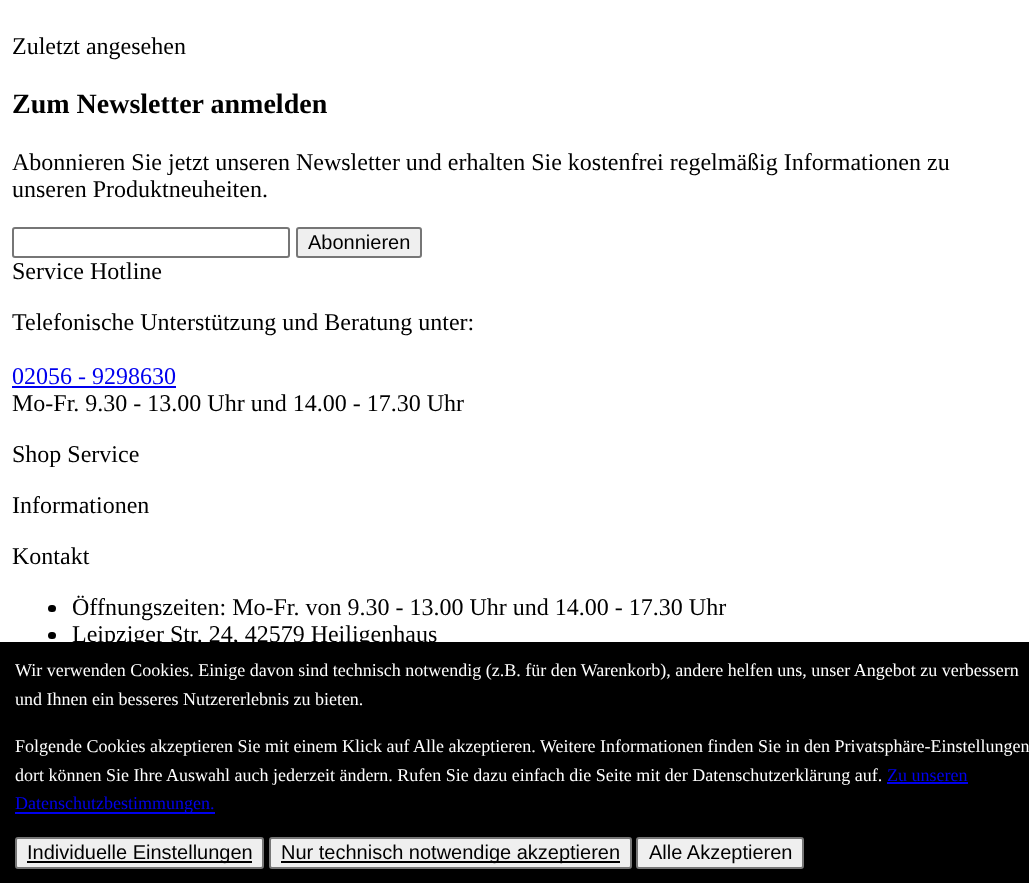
<svg xmlns="http://www.w3.org/2000/svg" width="1029" height="883">
<rect width="100%" height="100%" fill="#fff"/>
<text x="12" y="54" style="font-family:Liberation Serif;font-size:24px;fill:#000">Zuletzt angesehen</text>
<text x="12" y="113" style="font-family:Liberation Serif;font-size:28px;font-weight:bold;fill:#000">Zum Newsletter anmelden</text>
<text x="12" y="170" style="font-family:Liberation Serif;font-size:24px;fill:#000">Abonnieren Sie jetzt unseren Newsletter und erhalten Sie kostenfrei regelmäßig Informationen zu</text>
<text x="12" y="197" style="font-family:Liberation Serif;font-size:24px;fill:#000">unseren Produktneuheiten.</text>
<rect x="13" y="228" width="276" height="29" rx="2" fill="none" stroke="#767676" stroke-width="2"/>
<rect x="297" y="228" width="124" height="29" rx="2" fill="#efefef" stroke="#767676" stroke-width="2"/>
<text x="308" y="249" style="font-family:Liberation Sans;font-size:20px;fill:#000">Abonnieren</text>
<text x="12" y="279" style="font-family:Liberation Serif;font-size:24px;fill:#000">Service Hotline</text>
<text x="12" y="330" style="font-family:Liberation Serif;font-size:24px;fill:#000">Telefonische Unterstützung und Beratung unter:</text>
<text x="12" y="384" style="font-family:Liberation Serif;font-size:24px;fill:#00e">02056 - 9298630</text>
<rect x="12" y="386" width="164" height="2" fill="#00e"/>
<text x="12" y="411" style="font-family:Liberation Serif;font-size:24px;fill:#000">Mo-Fr. 9.30 - 13.00 Uhr und 14.00 - 17.30 Uhr</text>
<text x="12" y="462" style="font-family:Liberation Serif;font-size:24px;fill:#000">Shop Service</text>
<text x="12" y="513" style="font-family:Liberation Serif;font-size:24px;fill:#000">Informationen</text>
<text x="12" y="564" style="font-family:Liberation Serif;font-size:24px;fill:#000">Kontakt</text>
<rect x="48" y="605" width="8" height="7" rx="3.5" fill="#000"/>
<text x="72" y="615" style="font-family:Liberation Serif;font-size:24px;fill:#000">Öffnungszeiten: Mo-Fr. von 9.30 - 13.00 Uhr und 14.00 - 17.30 Uhr</text>
<rect x="48" y="632" width="8" height="7" rx="3.5" fill="#000"/>
<text x="72" y="642" style="font-family:Liberation Serif;font-size:24px;fill:#000">Leipziger Str. 24, 42579 Heiligenhaus</text>
<rect y="642" width="1029" height="241" fill="#000"/>
<text x="15" y="676" style="font-family:Liberation Serif;font-size:18px;fill:#fff">Wir verwenden Cookies. Einige davon sind technisch notwendig (z.B. für den Warenkorb), andere helfen uns, unser Angebot zu verbessern</text>
<text x="15" y="705" style="font-family:Liberation Serif;font-size:18px;fill:#fff">und Ihnen ein besseres Nutzererlebnis zu bieten.</text>
<text x="15" y="752" style="font-family:Liberation Serif;font-size:18px;fill:#fff">Folgende Cookies akzeptieren Sie mit einem Klick auf Alle akzeptieren. Weitere Informationen finden Sie in den Privatsphäre-Einstellungen</text>
<text x="15" y="781" style="font-family:Liberation Serif;font-size:18px;fill:#fff">dort können Sie Ihre Auswahl auch jederzeit ändern. Rufen Sie dazu einfach die Seite mit der Datenschutzerklärung auf.</text>
<text x="887" y="781" style="font-family:Liberation Serif;font-size:18px;fill:#00e">Zu unseren</text>
<rect x="887" y="782" width="81" height="2" fill="#00e"/>
<rect x="15" y="812" width="200" height="2" fill="#00e"/>
<text x="15" y="809" style="font-family:Liberation Serif;font-size:18px;fill:#00e">Datenschutzbestimmungen.</text>
<rect x="16" y="838" width="247" height="30" rx="2" fill="#efefef" stroke="#767676" stroke-width="2"/>
<rect x="27" y="861" width="225" height="2" fill="#000"/>
<text x="27" y="859" style="font-family:Liberation Sans;font-size:20px;fill:#000">Individuelle Einstellungen</text>
<rect x="270" y="838" width="361" height="30" rx="2" fill="#efefef" stroke="#767676" stroke-width="2"/>
<rect x="281" y="861" width="339" height="2" fill="#000"/>
<text x="281" y="859" style="font-family:Liberation Sans;font-size:20px;fill:#000">Nur technisch notwendige akzeptieren</text>
<rect x="637" y="838" width="166" height="30" rx="2" fill="#efefef" stroke="#767676" stroke-width="2"/>
<text x="649" y="859" style="font-family:Liberation Sans;font-size:20px;fill:#000">Alle Akzeptieren</text>
</svg>
